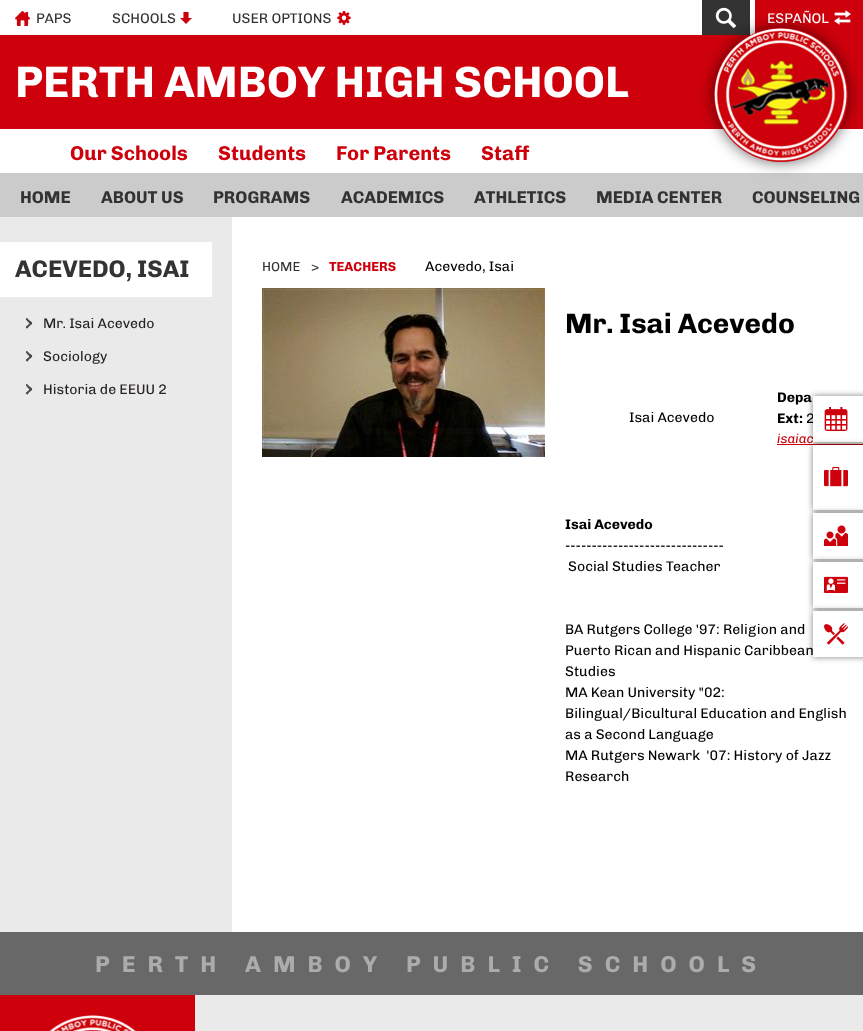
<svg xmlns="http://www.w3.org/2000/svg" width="863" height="1031">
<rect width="100%" height="100%" fill="#fff"/>
<image x="15" y="11" width="15" height="15" href="media/1.png"/>
<text x="36" y="23" style="font-family:Chivo;font-size:14px;fill:#333">PAPS</text>
<text x="112" y="23" style="font-family:Chivo;font-size:14px;fill:#333">SCHOOLS</text>
<image x="180" y="12" width="12" height="12" href="media/2.png"/>
<text x="232" y="23" style="font-family:Chivo;font-size:14px;fill:#333">USER OPTIONS</text>
<image x="337" y="11" width="14" height="14" href="media/3.png"/>
<rect x="702" width="48" height="35" fill="#333"/>
<image x="715" y="7" width="21" height="21" href="media/4.png"/>
<rect x="755" width="108" height="35" fill="#ce000c"/>
<text x="767" y="23" style="font-family:Chivo;font-size:14px;fill:#fff">ESPAÑOL</text>
<image x="834" y="10" width="17" height="15" href="media/5.png"/>
<rect y="35" width="863" height="94" fill="#ce000c"/>
<text x="15" y="97" style="font-family:Chivo;font-size:44px;font-weight:bold;fill:#fff">PERTH AMBOY HIGH SCHOOL</text>
<rect y="173" width="863" height="44" fill="#cccbcb"/>
<rect x="714" y="28" width="134" height="134" rx="67" fill="#00000099" filter="blur(7.5px)"/>
<circle cx="781" cy="95" r="67" fill="#ce000c"/>
<image x="714" y="28" width="134" height="133" href="media/6.png"/>
<text x="70" y="160" style="font-family:Chivo;font-size:20px;font-weight:bold;fill:#ce000c">Our Schools</text>
<text x="218" y="160" style="font-family:Chivo;font-size:20px;font-weight:bold;fill:#ce000c">Students</text>
<text x="336" y="160" style="font-family:Chivo;font-size:20px;font-weight:bold;fill:#ce000c">For Parents</text>
<text x="481" y="160" style="font-family:Chivo;font-size:20px;font-weight:bold;fill:#ce000c">Staff</text>
<text x="20" y="203" style="font-family:Chivo;font-size:17px;font-weight:bold;fill:#333">HOME</text>
<text x="101" y="203" style="font-family:Chivo;font-size:17px;font-weight:bold;fill:#333">ABOUT US</text>
<text x="213" y="203" style="font-family:Chivo;font-size:17px;font-weight:bold;fill:#333">PROGRAMS</text>
<text x="341" y="203" style="font-family:Chivo;font-size:17px;font-weight:bold;fill:#333">ACADEMICS</text>
<text x="474" y="203" style="font-family:Chivo;font-size:17px;font-weight:bold;fill:#333">ATHLETICS</text>
<text x="596" y="203" style="font-family:Chivo;font-size:17px;font-weight:bold;fill:#333">MEDIA CENTER</text>
<text x="752" y="203" style="font-family:Chivo;font-size:17px;font-weight:bold;fill:#333">COUNSELING</text>
<rect y="217" width="232" height="715" fill="#eaeaea"/>
<rect y="242" width="212" height="55" fill="#fff"/>
<text x="15" y="277" style="font-family:Chivo;font-size:24px;font-weight:bold;fill:#333">ACEVEDO, ISAI</text>
<path d="M27.5 318.5l2 2c1 .5 3.5 2 2.5 3.5c-1 1.5-4-2-4.5-2.5l-1.5-2c-.5-1 1-2 1.5-1z" fill="#494949"/>
<path d="M26 326.5l2.5-2c.5-.5 2-3 3-2c2 1-2 3.5-2.5 4l-1.5 2c-1 0-2-1-1.5-2zm1.5 25l2 2c1 .5 3.5 2 2.5 3.5c-1 1.5-4-2-4.5-2.5l-1.5-2c-.5-1 1-2 1.5-1z" fill="#494949"/>
<text x="43" y="328" style="font-family:Chivo;font-size:14px;fill:#272223">Mr. Isai Acevedo</text>
<path d="M26 359.5l2.5-2c.5-.5 2-3 3-2c2 1-2 3.5-2.5 4l-1.5 2c-1 0-2-1-1.5-2zm1.5 25l2 2c1 .5 3.5 2 2.5 3.5c-1 1.5-4-2-4.5-2.5l-1.5-2c-.5-1 1-2 1.5-1z" fill="#494949"/>
<text x="43" y="361" style="font-family:Chivo;font-size:14px;fill:#272223">Sociology</text>
<path d="M26 392.5l2.5-2c.5-.5 2-3 3-2c2 1-2 3.5-2.5 4l-1.5 2c-1 0-2-1-1.5-2z" fill="#494949"/>
<text x="43" y="394" style="font-family:Chivo;font-size:14px;fill:#272223">Historia de EEUU 2</text>
<text x="262" y="271" style="font-family:Chivo;font-size:13px;fill:#333">HOME</text>
<text x="311" y="271" style="font-family:Chivo;font-size:13px;fill:#333">&gt;</text>
<text x="329" y="271" style="font-family:Chivo;font-size:13px;font-weight:bold;fill:#ce000c">TEACHERS</text>
<text x="425" y="271" style="font-family:Chivo;font-size:14px;fill:#000">Acevedo, Isai</text>
<image x="262" y="288" width="283" height="169" href="media/7.png"/>
<text x="565" y="333" style="font-family:Chivo;font-size:28px;font-weight:bold;fill:#000">Mr. Isai Acevedo</text>
<text x="629" y="422" style="font-family:Chivo;font-size:14px;fill:#000">Isai Acevedo</text>
<text x="777" y="402" style="font-family:Chivo;font-size:14px;font-weight:bold;fill:#000">Depa</text>
<text x="777" y="423" style="font-family:Chivo;font-size:14px;font-weight:bold;fill:#000">Ext:</text>
<text x="806" y="423" style="font-family:Chivo;font-size:14px;fill:#000">2</text>
<text x="777" y="443" style="font-family:Chivo;font-size:13px;font-weight:500;font-style:italic;fill:#ce000c">isaiac</text>
<rect x="777" y="444" width="86" height="1" fill="#ce000c"/>
<text x="565" y="529" style="font-family:Chivo;font-size:14px;font-weight:bold;fill:#000">Isai Acevedo</text>
<text x="565" y="550" style="font-family:Chivo;font-size:14px;fill:#000">------------------------------</text>
<text x="568" y="571" style="font-family:Chivo;font-size:14px;fill:#000">Social Studies Teacher</text>
<text x="565" y="634" style="font-family:Chivo;font-size:14px;fill:#000">BA Rutgers College '97: Religion and</text>
<text x="565" y="655" style="font-family:Chivo;font-size:14px;fill:#000">Puerto Rican and Hispanic Caribbean</text>
<text x="565" y="676" style="font-family:Chivo;font-size:14px;fill:#000">Studies</text>
<text x="565" y="697" style="font-family:Chivo;font-size:14px;fill:#000">MA Kean University "02:</text>
<text x="565" y="718" style="font-family:Chivo;font-size:14px;fill:#000">Bilingual/Bicultural Education and English</text>
<text x="565" y="739" style="font-family:Chivo;font-size:14px;fill:#000">as a Second Language</text>
<text x="565" y="760" style="font-family:Chivo;font-size:14px;fill:#000" xml:space="preserve">MA Rutgers Newark  '07: History of Jazz</text>
<text x="565" y="781" style="font-family:Chivo;font-size:14px;fill:#000">Research</text>
<rect x="813" y="396" width="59" height="46" fill="#00000080" filter="blur(3px)"/>
<rect x="813" y="396" width="50" height="46" fill="#fff"/>
<image x="824" y="407" width="24" height="24" href="media/8.png"/>
<rect x="813" y="445" width="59" height="65" fill="#00000080" filter="blur(3px)"/>
<rect x="813" y="445" width="50" height="65" fill="#fff"/>
<image x="824" y="466" width="24" height="21" href="media/9.png"/>
<rect x="813" y="513" width="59" height="46" fill="#00000080" filter="blur(3px)"/>
<rect x="813" y="513" width="50" height="46" fill="#fff"/>
<image x="824" y="525" width="24" height="21" href="media/10.png"/>
<rect x="813" y="562" width="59" height="46" fill="#00000080" filter="blur(3px)"/>
<rect x="813" y="562" width="50" height="46" fill="#fff"/>
<image x="824" y="576" width="24" height="17" href="media/11.png"/>
<rect x="813" y="611" width="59" height="46" fill="#00000080" filter="blur(3px)"/>
<rect x="813" y="611" width="50" height="46" fill="#fff"/>
<image x="824" y="623" width="24" height="22" href="media/12.png"/>
<rect y="932" width="863" height="63" fill="#686868"/>
<text x="95" y="972" style="font-family:Chivo;font-size:23px;font-weight:bold;letter-spacing:12px;fill:#acacac">PERTH AMBOY PUBLIC SCHOOLS</text>
<rect y="995" width="195" height="36" fill="#ce000c"/>
<image x="49" y="1015" width="87" height="16" href="media/13.png"/>
<rect x="195" y="995" width="668" height="36" fill="#eaeaea"/>
</svg>
